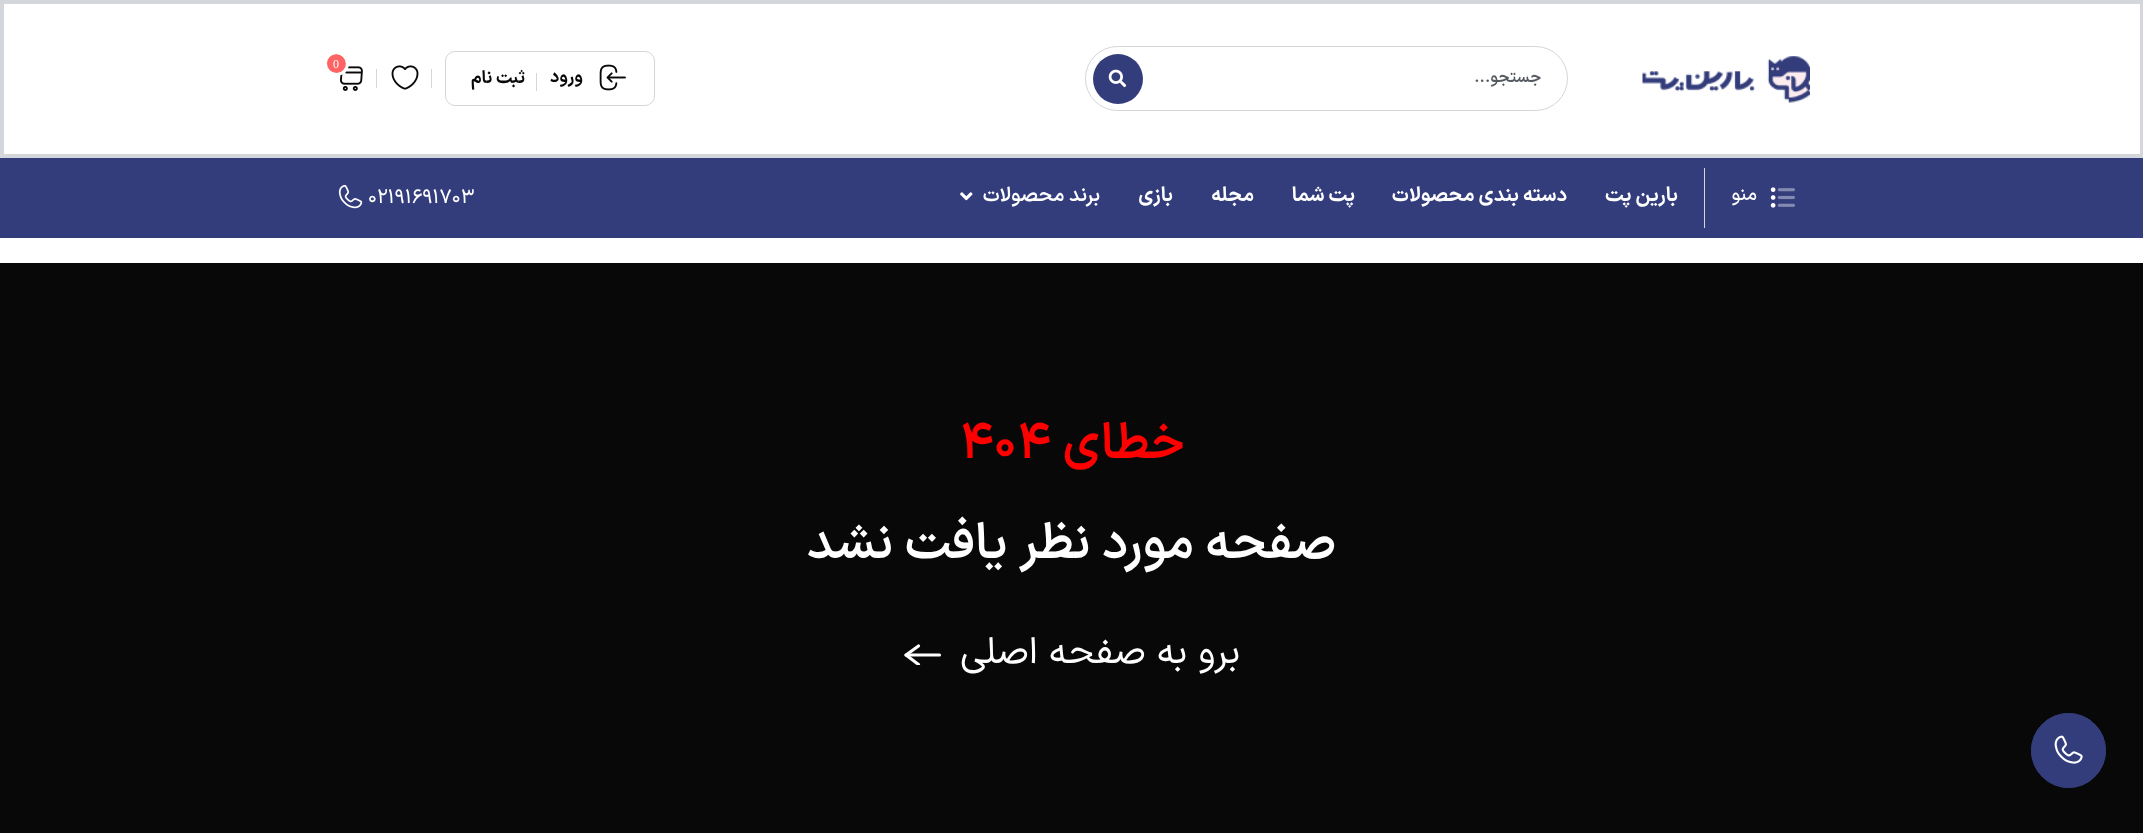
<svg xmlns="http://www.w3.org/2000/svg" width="2143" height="833">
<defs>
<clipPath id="clip1"><rect x="904" y="644" width="37" height="21"/></clipPath>
</defs>
<rect width="100%" height="100%" fill="#fff"/>
<rect x="2" y="2" width="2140" height="154" fill="none" stroke="#d3d6db" stroke-width="4"/>
<image x="1642" y="56" width="168" height="47" href="media/1.png"/>
<rect x="1085.5" y="46.5" width="482" height="64" rx="32" fill="none" stroke="#d3d6db"/>
<text x="1541" y="82" style="font-family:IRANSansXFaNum;font-size:16.25px;font-weight:600;direction:rtl;fill:#54595f">جستجو...</text>
<circle cx="1118" cy="79" r="25" fill="#333d7b"/>
<image x="1108" y="69" width="19" height="19" href="media/2.png"/>
<image x="340" y="66" width="23" height="25" href="media/3.png"/>
<circle cx="336" cy="64" r="10" fill="#ff6363"/>
<circle cx="336.5" cy="63.5" r="11" fill="none" stroke="#fff" stroke-width="3"/>
<text x="333" y="68" style="font-family:Liberation Serif;font-size:12px;fill:#fff">0</text>
<rect x="376" y="69" width="1" height="19" fill="#d3d6db"/>
<rect x="445.5" y="51.5" width="209" height="54" rx="9.5" fill="none" stroke="#d3d6db"/>
<image x="599" y="64" width="27" height="27" href="media/4.png"/>
<text x="583" y="82" style="font-family:IRANSansXFaNum;font-size:17.5px;font-weight:bold;direction:rtl;fill:#080808">ورود</text>
<rect x="536" y="73" width="1" height="18" fill="#d3d6db"/>
<text x="525" y="83" style="font-family:IRANSansXFaNum;font-size:17.5px;font-weight:bold;direction:rtl;fill:#080808">ثبت نام</text>
<rect x="431" y="69" width="1" height="19" fill="#d3d6db"/>
<image x="391" y="65" width="28" height="25" href="media/5.png"/>
<rect y="158" width="2143" height="80" fill="#333d7b"/>
<rect x="1704" y="168" width="1" height="60" fill="#d3d6db"/>
<image x="1770" y="187" width="25" height="21" href="media/6.png"/>
<text x="1757" y="200" style="font-family:IRANSansXFaNum;font-size:19px;font-weight:500;direction:rtl;fill:#fff">منو</text>
<text x="1678" y="201" style="font-family:IRANSansXFaNum;font-size:20px;font-weight:bold;direction:rtl;fill:#fff">بارین پت</text>
<text x="1567" y="201" style="font-family:IRANSansXFaNum;font-size:20px;font-weight:bold;direction:rtl;fill:#fff">دسته بندی محصولات</text>
<text x="1355" y="201" style="font-family:IRANSansXFaNum;font-size:20px;font-weight:bold;direction:rtl;fill:#fff">پت شما</text>
<text x="1254" y="201" style="font-family:IRANSansXFaNum;font-size:20px;font-weight:bold;direction:rtl;fill:#fff">مجله</text>
<text x="1173" y="201" style="font-family:IRANSansXFaNum;font-size:20px;font-weight:bold;direction:rtl;fill:#fff">بازی</text>
<text x="1100" y="201" style="font-family:IRANSansXFaNum;font-size:20px;font-weight:600;direction:rtl;fill:#fff">برند محصولات</text>
<image x="960" y="192" width="13" height="9" href="media/7.png"/>
<text x="368" y="203" style="font-family:IRANSansXFaNum;font-size:20px;fill:#fff">02191691703</text>
<image x="338" y="184" width="25" height="25" href="media/8.png"/>
<rect y="263" width="2143" height="570" fill="#080808"/>
<text x="1184" y="458" style="font-family:IRANSansXFaNum;font-size:50px;font-weight:600;direction:rtl;fill:#f00">خطای</text>
<text x="960" y="458" style="font-family:IRANSansXFaNum;font-size:50px;font-weight:600;fill:#f00">404</text>
<text x="1336" y="558" style="font-family:IRANSansXFaNum;font-size:50px;font-weight:600;direction:rtl;fill:#fff">صفحه مورد نظر یافت نشد</text>
<text x="1240" y="663" style="font-family:IRANSansXFaNum;font-size:37.5px;direction:rtl;fill:#fff">برو به صفحه اصلی</text>
<path d="M939.5 655h-33.5" fill="none" stroke="#fff" stroke-width="3.1" stroke-linecap="round" stroke-linejoin="round"/>
<g clip-path="url(#clip1)">
<path d="M918.5 664.5l-12.5-9.5l12.5-9" fill="none" stroke="#fff" stroke-width="3.1" stroke-linecap="round" stroke-linejoin="round"/>
</g>
<circle cx="2068.5" cy="750.5" r="37" fill="#333d7b" stroke="#333d7b"/>
<image x="2054" y="735" width="29" height="29" href="media/9.png"/>
<circle cx="2068.5" cy="750.5" r="37" fill="none" stroke="#333d7b"/>
</svg>
